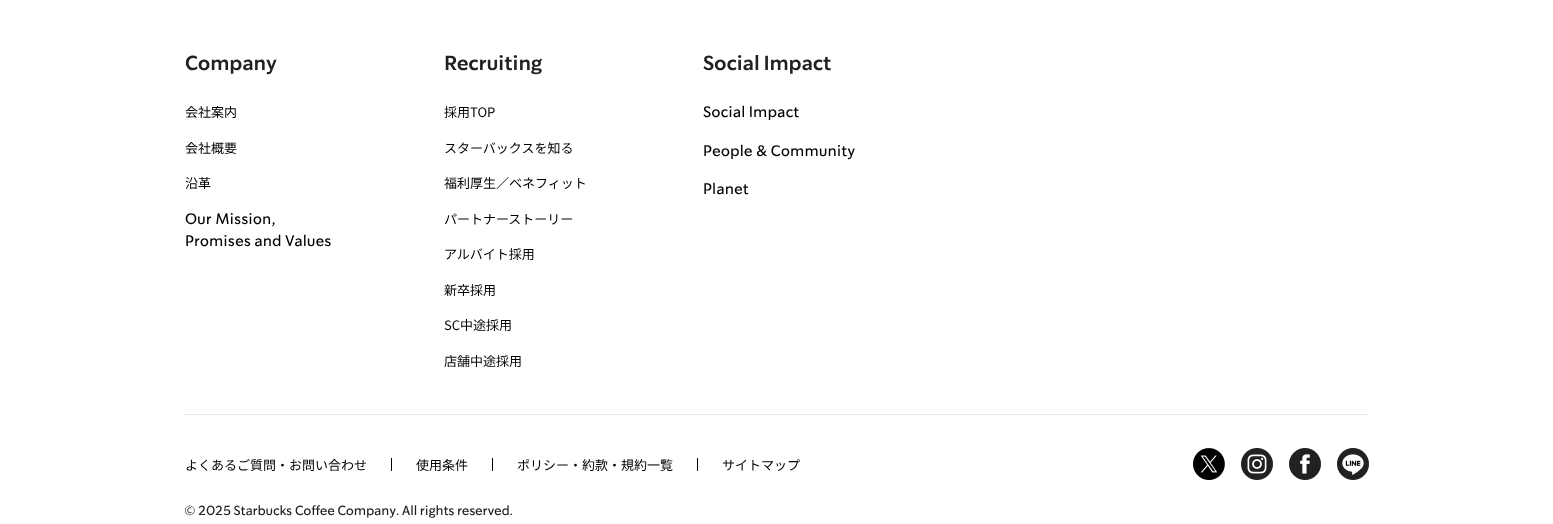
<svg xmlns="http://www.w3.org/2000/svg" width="1553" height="524">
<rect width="100%" height="100%" fill="#fff"/>
<text x="185" y="70" style="font-family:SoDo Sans;font-size:20px;font-weight:600;letter-spacing:-0.25px;fill:#212121">Company</text>
<text x="185" y="117" style="font-family:Noto Sans JP;font-size:13px;fill:#000">会社案内</text>
<text x="185" y="153" style="font-family:Noto Sans JP;font-size:13px;fill:#000">会社概要</text>
<text x="185" y="188" style="font-family:Noto Sans JP;font-size:13px;fill:#000">沿革</text>
<text x="185" y="224" style="font-family:SoDo Sans;font-size:15px;fill:#000">Our Mission,</text>
<text x="185" y="246" style="font-family:SoDo Sans;font-size:15px;fill:#000">Promises and Values</text>
<text x="444" y="70" style="font-family:SoDo Sans;font-size:20px;font-weight:600;letter-spacing:-0.25px;fill:#212121">Recruiting</text>
<text x="444" y="117" style="font-family:Noto Sans JP;font-size:13px;fill:#000">採用TOP</text>
<text x="444" y="153" style="font-family:Noto Sans JP;font-size:13px;fill:#000">スターバックスを知る</text>
<text x="444" y="188" style="font-family:Noto Sans JP;font-size:13px;fill:#000">福利厚生／ベネフィット</text>
<text x="444" y="224" style="font-family:Noto Sans JP;font-size:13px;fill:#000">パートナーストーリー</text>
<text x="444" y="259" style="font-family:Noto Sans JP;font-size:13px;fill:#000">アルバイト採用</text>
<text x="444" y="295" style="font-family:Noto Sans JP;font-size:13px;fill:#000">新卒採用</text>
<text x="444" y="330" style="font-family:Noto Sans JP;font-size:13px;fill:#000">SC中途採用</text>
<text x="444" y="366" style="font-family:Noto Sans JP;font-size:13px;fill:#000">店舗中途採用</text>
<text x="703" y="70" style="font-family:SoDo Sans;font-size:20px;font-weight:600;letter-spacing:-0.25px;fill:#212121">Social Impact</text>
<text x="703" y="117" style="font-family:SoDo Sans;font-size:15px;fill:#000">Social Impact</text>
<text x="703" y="156" style="font-family:SoDo Sans;font-size:15px;fill:#000">People &amp; Community</text>
<text x="703" y="194" style="font-family:SoDo Sans;font-size:15px;fill:#000">Planet</text>
<rect x="185" y="414" width="1184" height="1" fill="#e6e6e6"/>
<text x="185" y="470" style="font-family:Noto Sans JP;font-size:13px;fill:#000">よくあるご質問・お問い合わせ</text>
<rect x="391" y="458" width="1" height="13" fill="#000"/>
<text x="416" y="470" style="font-family:Noto Sans JP;font-size:13px;fill:#000">使用条件</text>
<rect x="492" y="458" width="1" height="13" fill="#000"/>
<text x="517" y="470" style="font-family:Noto Sans JP;font-size:13px;fill:#000">ポリシー・約款・規約一覧</text>
<rect x="697" y="458" width="1" height="13" fill="#000"/>
<text x="722" y="470" style="font-family:Noto Sans JP;font-size:13px;fill:#000">サイトマップ</text>
<image x="1193" y="448" width="32" height="32" href="media/1.png"/>
<image x="1241" y="448" width="32" height="32" href="media/2.png"/>
<image x="1289" y="448" width="32" height="32" href="media/3.png"/>
<image x="1337" y="448" width="32" height="32" href="media/4.png"/>
<text x="185" y="515" style="font-family:SoDo Sans;font-size:13px;letter-spacing:-0.2px;fill:#212121">© 2025 Starbucks Coffee Company. All rights reserved.</text>
</svg>
